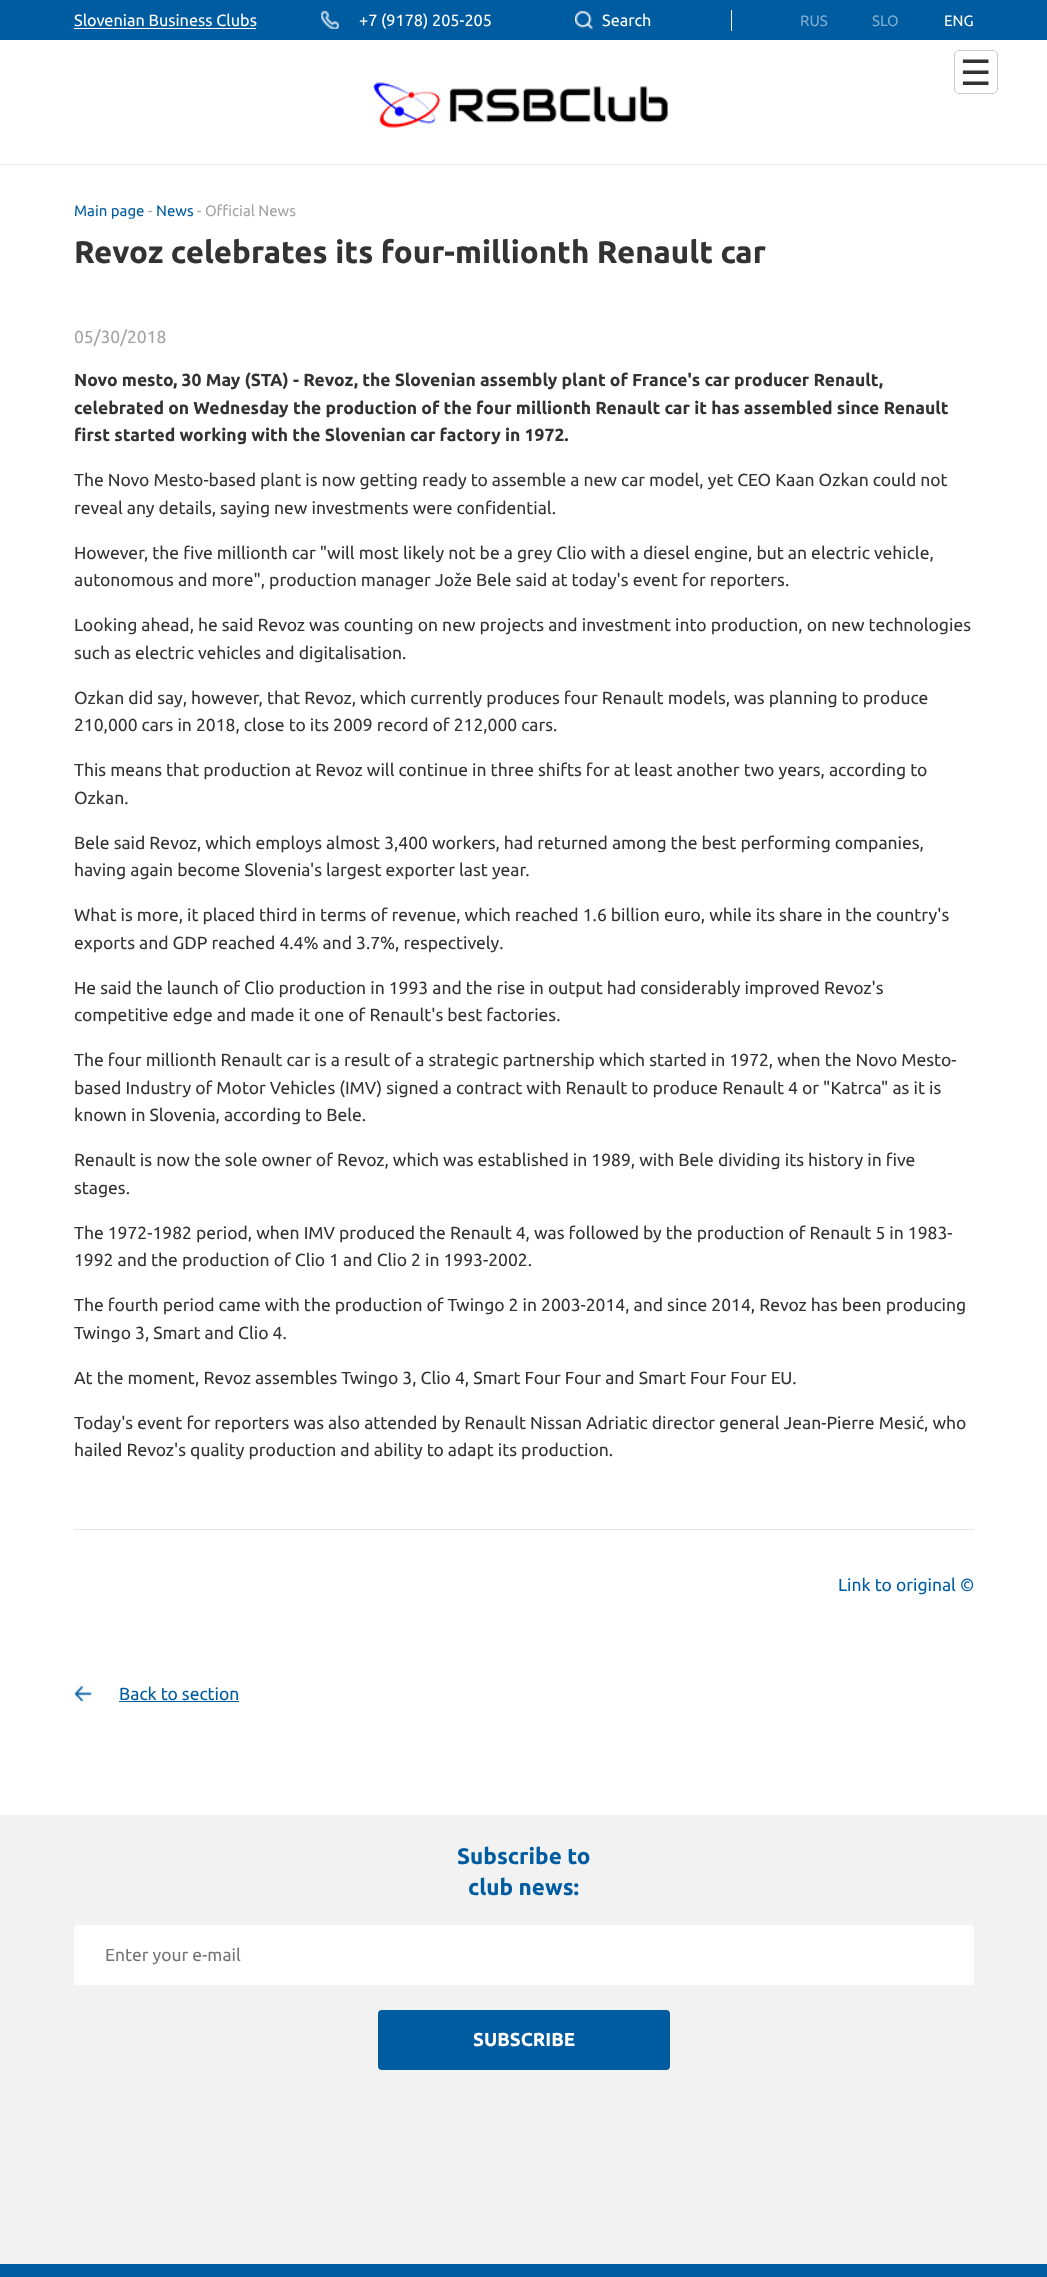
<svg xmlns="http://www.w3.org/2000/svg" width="1047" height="2277">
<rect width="100%" height="100%" fill="#fff"/>
<rect width="1047" height="40" fill="#005ca1"/>
<text x="74" y="26" style="font-family:Ubuntu;font-size:16.25px;fill:#fff">Slovenian Business Clubs</text>
<rect x="74" y="28" width="182" height="1" fill="#fff"/>
<image x="321" y="11" width="18" height="18" href="media/1.png"/>
<text x="359" y="26" style="font-family:Ubuntu;font-size:16.25px;fill:#fff">+7 (9178) 205-205</text>
<image x="575" y="11" width="18" height="18" href="media/2.png"/>
<text x="602" y="26" style="font-family:Ubuntu;font-size:16.25px;fill:#fff">Search</text>
<rect x="731" y="10" width="1" height="21" fill="#fff"/>
<text x="800" y="26" style="font-family:Ubuntu;font-size:15px;fill:#80aed0">RUS</text>
<text x="872" y="26" style="font-family:Ubuntu;font-size:15px;fill:#80aed0">SLO</text>
<text x="944" y="26" style="font-family:Ubuntu;font-size:15px;fill:#fff">ENG</text>
<rect y="164" width="1047" height="1" fill="#eee"/>
<image x="373" y="82" width="296" height="46" href="media/3.png"/>
<text x="74" y="216" style="font-family:Ubuntu;font-size:15px;fill:#005ca1">Main page</text>
<text x="148" y="216" style="font-family:Ubuntu;font-size:15px;fill:#a4a3a3">-</text>
<text x="156" y="216" style="font-family:Ubuntu;font-size:15px;fill:#005ca1">News</text>
<text x="197" y="216" style="font-family:Ubuntu;font-size:15px;fill:#a4a3a3">- Official News</text>
<text x="74" y="263" style="font-family:Ubuntu;font-size:31.25px;font-weight:bold;fill:#333">Revoz celebrates its four-millionth Renault car</text>
<text x="74" y="343" style="font-family:Ubuntu;font-size:17.5px;fill:#a4a3a3">05/30/2018</text>
<rect x="74" y="1529" width="900" height="1" fill="#e5e5e5"/>
<text x="74" y="386" style="font-family:Ubuntu;font-size:17.5px;font-weight:bold;fill:#333">Novo mesto, 30 May (STA) - Revoz, the Slovenian assembly plant of France's car producer Renault,</text>
<text x="74" y="414" style="font-family:Ubuntu;font-size:17.5px;font-weight:bold;fill:#333">celebrated on Wednesday the production of the four millionth Renault car it has assembled since Renault</text>
<text x="74" y="441" style="font-family:Ubuntu;font-size:17.5px;font-weight:bold;fill:#333">first started working with the Slovenian car factory in 1972.</text>
<text x="74" y="486" style="font-family:Ubuntu;font-size:17.5px;fill:#333">The Novo Mesto-based plant is now getting ready to assemble a new car model, yet CEO Kaan Ozkan could not</text>
<text x="74" y="514" style="font-family:Ubuntu;font-size:17.5px;fill:#333">reveal any details, saying new investments were confidential.</text>
<text x="74" y="559" style="font-family:Ubuntu;font-size:17.5px;fill:#333">However, the five millionth car "will most likely not be a grey Clio with a diesel engine, but an electric vehicle,</text>
<text x="74" y="586" style="font-family:Ubuntu;font-size:17.5px;fill:#333">autonomous and more", production manager Jože Bele said at today's event for reporters.</text>
<text x="74" y="631" style="font-family:Ubuntu;font-size:17.5px;fill:#333">Looking ahead, he said Revoz was counting on new projects and investment into production, on new technologies</text>
<text x="74" y="659" style="font-family:Ubuntu;font-size:17.5px;fill:#333">such as electric vehicles and digitalisation.</text>
<text x="74" y="704" style="font-family:Ubuntu;font-size:17.5px;fill:#333">Ozkan did say, however, that Revoz, which currently produces four Renault models, was planning to produce</text>
<text x="74" y="731" style="font-family:Ubuntu;font-size:17.5px;fill:#333">210,000 cars in 2018, close to its 2009 record of 212,000 cars.</text>
<text x="74" y="776" style="font-family:Ubuntu;font-size:17.5px;fill:#333">This means that production at Revoz will continue in three shifts for at least another two years, according to</text>
<text x="74" y="804" style="font-family:Ubuntu;font-size:17.5px;fill:#333">Ozkan.</text>
<text x="74" y="849" style="font-family:Ubuntu;font-size:17.5px;fill:#333">Bele said Revoz, which employs almost 3,400 workers, had returned among the best performing companies,</text>
<text x="74" y="876" style="font-family:Ubuntu;font-size:17.5px;fill:#333">having again become Slovenia's largest exporter last year.</text>
<text x="74" y="921" style="font-family:Ubuntu;font-size:17.5px;fill:#333">What is more, it placed third in terms of revenue, which reached 1.6 billion euro, while its share in the country's</text>
<text x="74" y="949" style="font-family:Ubuntu;font-size:17.5px;fill:#333">exports and GDP reached 4.4% and 3.7%, respectively.</text>
<text x="74" y="994" style="font-family:Ubuntu;font-size:17.5px;fill:#333">He said the launch of Clio production in 1993 and the rise in output had considerably improved Revoz's</text>
<text x="74" y="1021" style="font-family:Ubuntu;font-size:17.5px;fill:#333">competitive edge and made it one of Renault's best factories.</text>
<text x="74" y="1066" style="font-family:Ubuntu;font-size:17.5px;fill:#333">The four millionth Renault car is a result of a strategic partnership which started in 1972, when the Novo Mesto-</text>
<text x="74" y="1094" style="font-family:Ubuntu;font-size:17.5px;fill:#333">based Industry of Motor Vehicles (IMV) signed a contract with Renault to produce Renault 4 or "Katrca" as it is</text>
<text x="74" y="1121" style="font-family:Ubuntu;font-size:17.5px;fill:#333">known in Slovenia, according to Bele.</text>
<text x="74" y="1166" style="font-family:Ubuntu;font-size:17.5px;fill:#333">Renault is now the sole owner of Revoz, which was established in 1989, with Bele dividing its history in five</text>
<text x="74" y="1194" style="font-family:Ubuntu;font-size:17.5px;fill:#333">stages.</text>
<text x="74" y="1239" style="font-family:Ubuntu;font-size:17.5px;fill:#333">The 1972-1982 period, when IMV produced the Renault 4, was followed by the production of Renault 5 in 1983-</text>
<text x="74" y="1266" style="font-family:Ubuntu;font-size:17.5px;fill:#333">1992 and the production of Clio 1 and Clio 2 in 1993-2002.</text>
<text x="74" y="1311" style="font-family:Ubuntu;font-size:17.5px;fill:#333">The fourth period came with the production of Twingo 2 in 2003-2014, and since 2014, Revoz has been producing</text>
<text x="74" y="1339" style="font-family:Ubuntu;font-size:17.5px;fill:#333">Twingo 3, Smart and Clio 4.</text>
<text x="74" y="1384" style="font-family:Ubuntu;font-size:17.5px;fill:#333">At the moment, Revoz assembles Twingo 3, Clio 4, Smart Four Four and Smart Four Four EU.</text>
<text x="74" y="1429" style="font-family:Ubuntu;font-size:17.5px;fill:#333">Today's event for reporters was also attended by Renault Nissan Adriatic director general Jean-Pierre Mesić, who</text>
<text x="74" y="1456" style="font-family:Ubuntu;font-size:17.5px;fill:#333">hailed Revoz's quality production and ability to adapt its production.</text>
<text x="838" y="1591" style="font-family:Ubuntu;font-size:17.5px;fill:#005ca1">Link to original ©</text>
<image x="75" y="1686" width="17" height="16" href="media/4.png"/>
<text x="119" y="1700" style="font-family:Ubuntu;font-size:17.5px;fill:#005ca1">Back to section</text>
<rect x="119" y="1701" width="120" height="1" fill="#005ca1"/>
<rect y="1815" width="1047" height="449" fill="#f2f2f2"/>
<text x="457" y="1864" style="font-family:Ubuntu;font-size:22.5px;font-weight:bold;fill:#005ca1">Subscribe to</text>
<text x="468" y="1895" style="font-family:Ubuntu;font-size:22.5px;font-weight:bold;fill:#005ca1">club news:</text>
<rect x="74" y="1925" width="900" height="60" rx="4" fill="#fff"/>
<text x="105" y="1961" style="font-family:Ubuntu;font-size:17.5px;fill:#757575">Enter your e-mail</text>
<rect x="378" y="2010" width="292" height="60" rx="4" fill="#005ca1"/>
<text x="473" y="2046" style="font-family:Ubuntu;font-size:18.75px;font-weight:bold;fill:#fff">SUBSCRIBE</text>
<rect y="2264" width="1047" height="13" fill="#005ca1"/>
<rect x="954.5" y="50.5" width="43" height="43" rx="4.5" fill="none" stroke="#ccc"/>
<text x="960" y="85" style="font-family:DejaVu Sans;font-size:35px;fill:#333">☰</text>
</svg>
